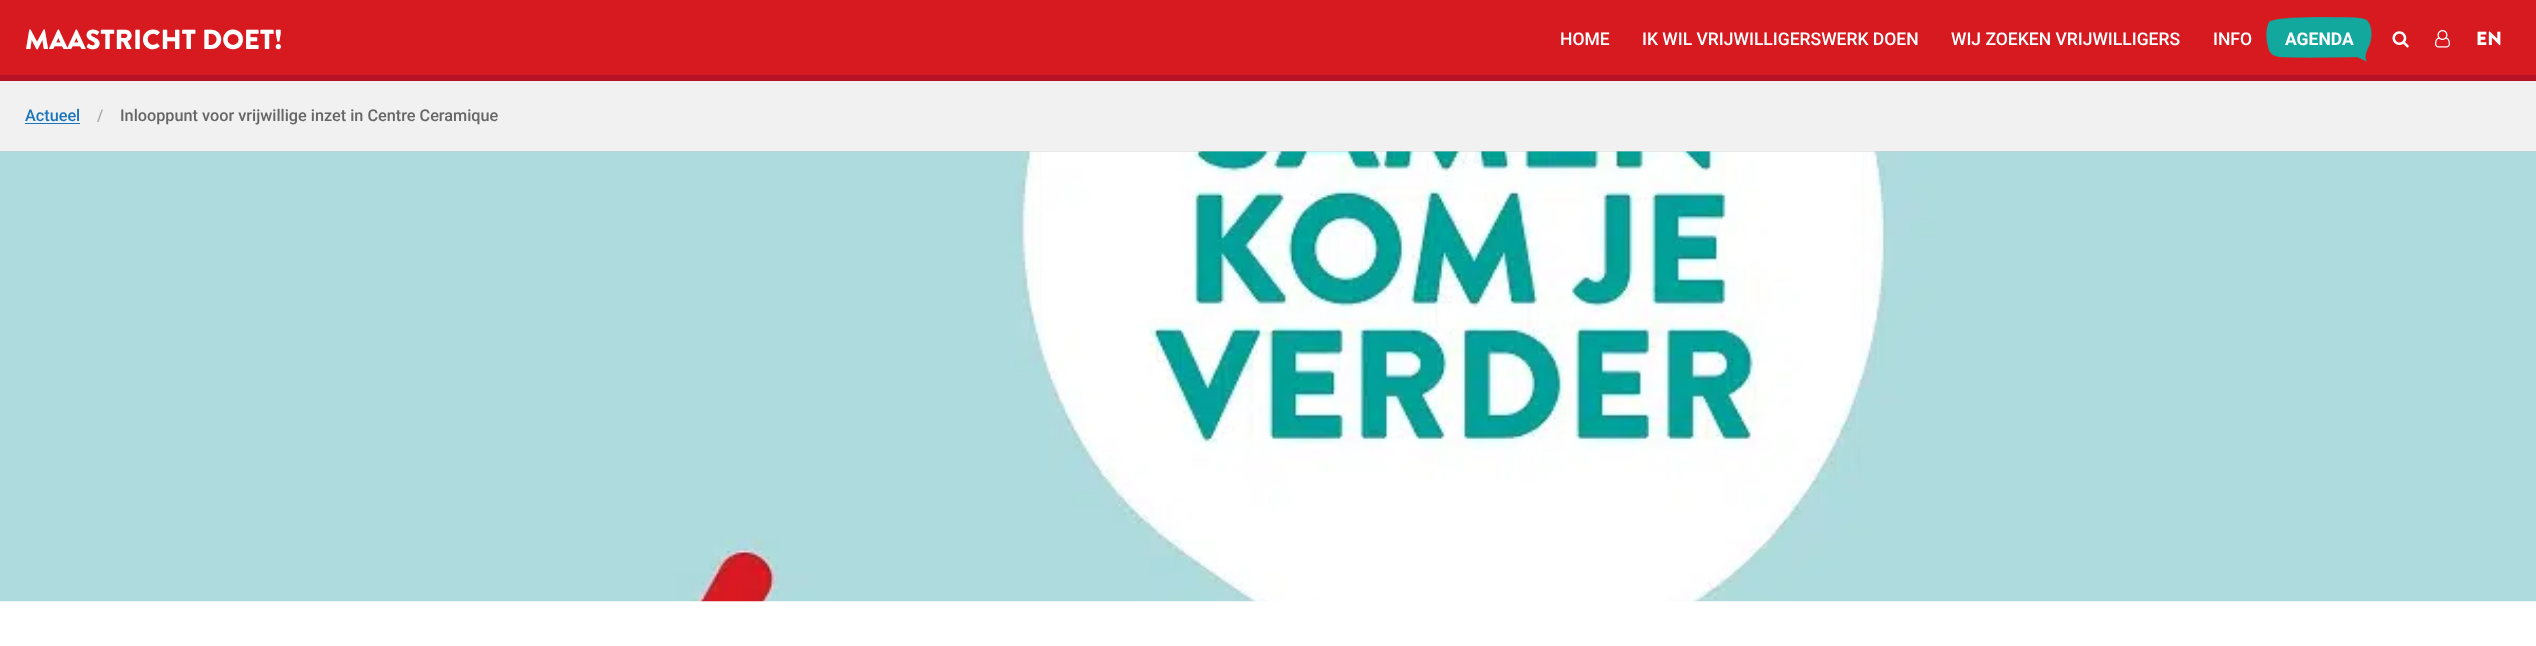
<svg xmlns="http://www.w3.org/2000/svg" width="2536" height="646">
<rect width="100%" height="100%" fill="#fff"/>
<rect width="2536" height="75" fill="#d71920"/>
<rect y="75" width="2536" height="6" fill="#b71125"/>
<text x="25" y="49" style="font-family:Brandon Grotesque;font-size:27.5px;font-weight:900;fill:#fff">MAASTRICHT DOET!</text>
<text x="1560" y="45" style="font-family:Roboto;font-size:17.5px;font-weight:500;fill:#fff">HOME</text>
<text x="1642" y="45" style="font-family:Roboto;font-size:17.5px;font-weight:500;fill:#fff">IK WIL VRIJWILLIGERSWERK DOEN</text>
<text x="1951" y="45" style="font-family:Roboto;font-size:17.5px;font-weight:500;fill:#fff">WIJ ZOEKEN VRIJWILLIGERS</text>
<text x="2213" y="45" style="font-family:Roboto;font-size:17.5px;font-weight:500;fill:#fff">INFO</text>
<image x="2266" y="17" width="106" height="45" href="media/1.png"/>
<text x="2285" y="45" style="font-family:Roboto;font-size:17.5px;font-weight:bold;fill:#fff">AGENDA</text>
<image x="2392" y="31" width="17" height="17" href="media/2.png"/>
<image x="2435" y="30" width="15" height="18" href="media/3.png"/>
<text x="2476" y="45" style="font-family:Brandon Grotesque;font-size:19px;font-weight:900;fill:#fff">EN</text>
<rect y="81" width="2536" height="70" fill="#f1f1f1"/>
<text x="25" y="121" style="font-family:Roboto;font-size:16.25px;font-weight:500;fill:#1b75bc">Actueel</text>
<rect x="25" y="123" width="55" height="1" fill="#1b75bc"/>
<text x="97" y="121" style="font-family:Roboto;font-size:16.25px;font-weight:500;fill:#aaa">/</text>
<text x="120" y="121" style="font-family:Roboto;font-size:16.25px;font-weight:500;fill:#666">Inlooppunt voor vrijwillige inzet in Centre Ceramique</text>
<rect y="151" width="2536" height="1" fill="#ccc"/>
<image x="0" y="151" width="2536" height="451" href="media/4.png"/>
</svg>
